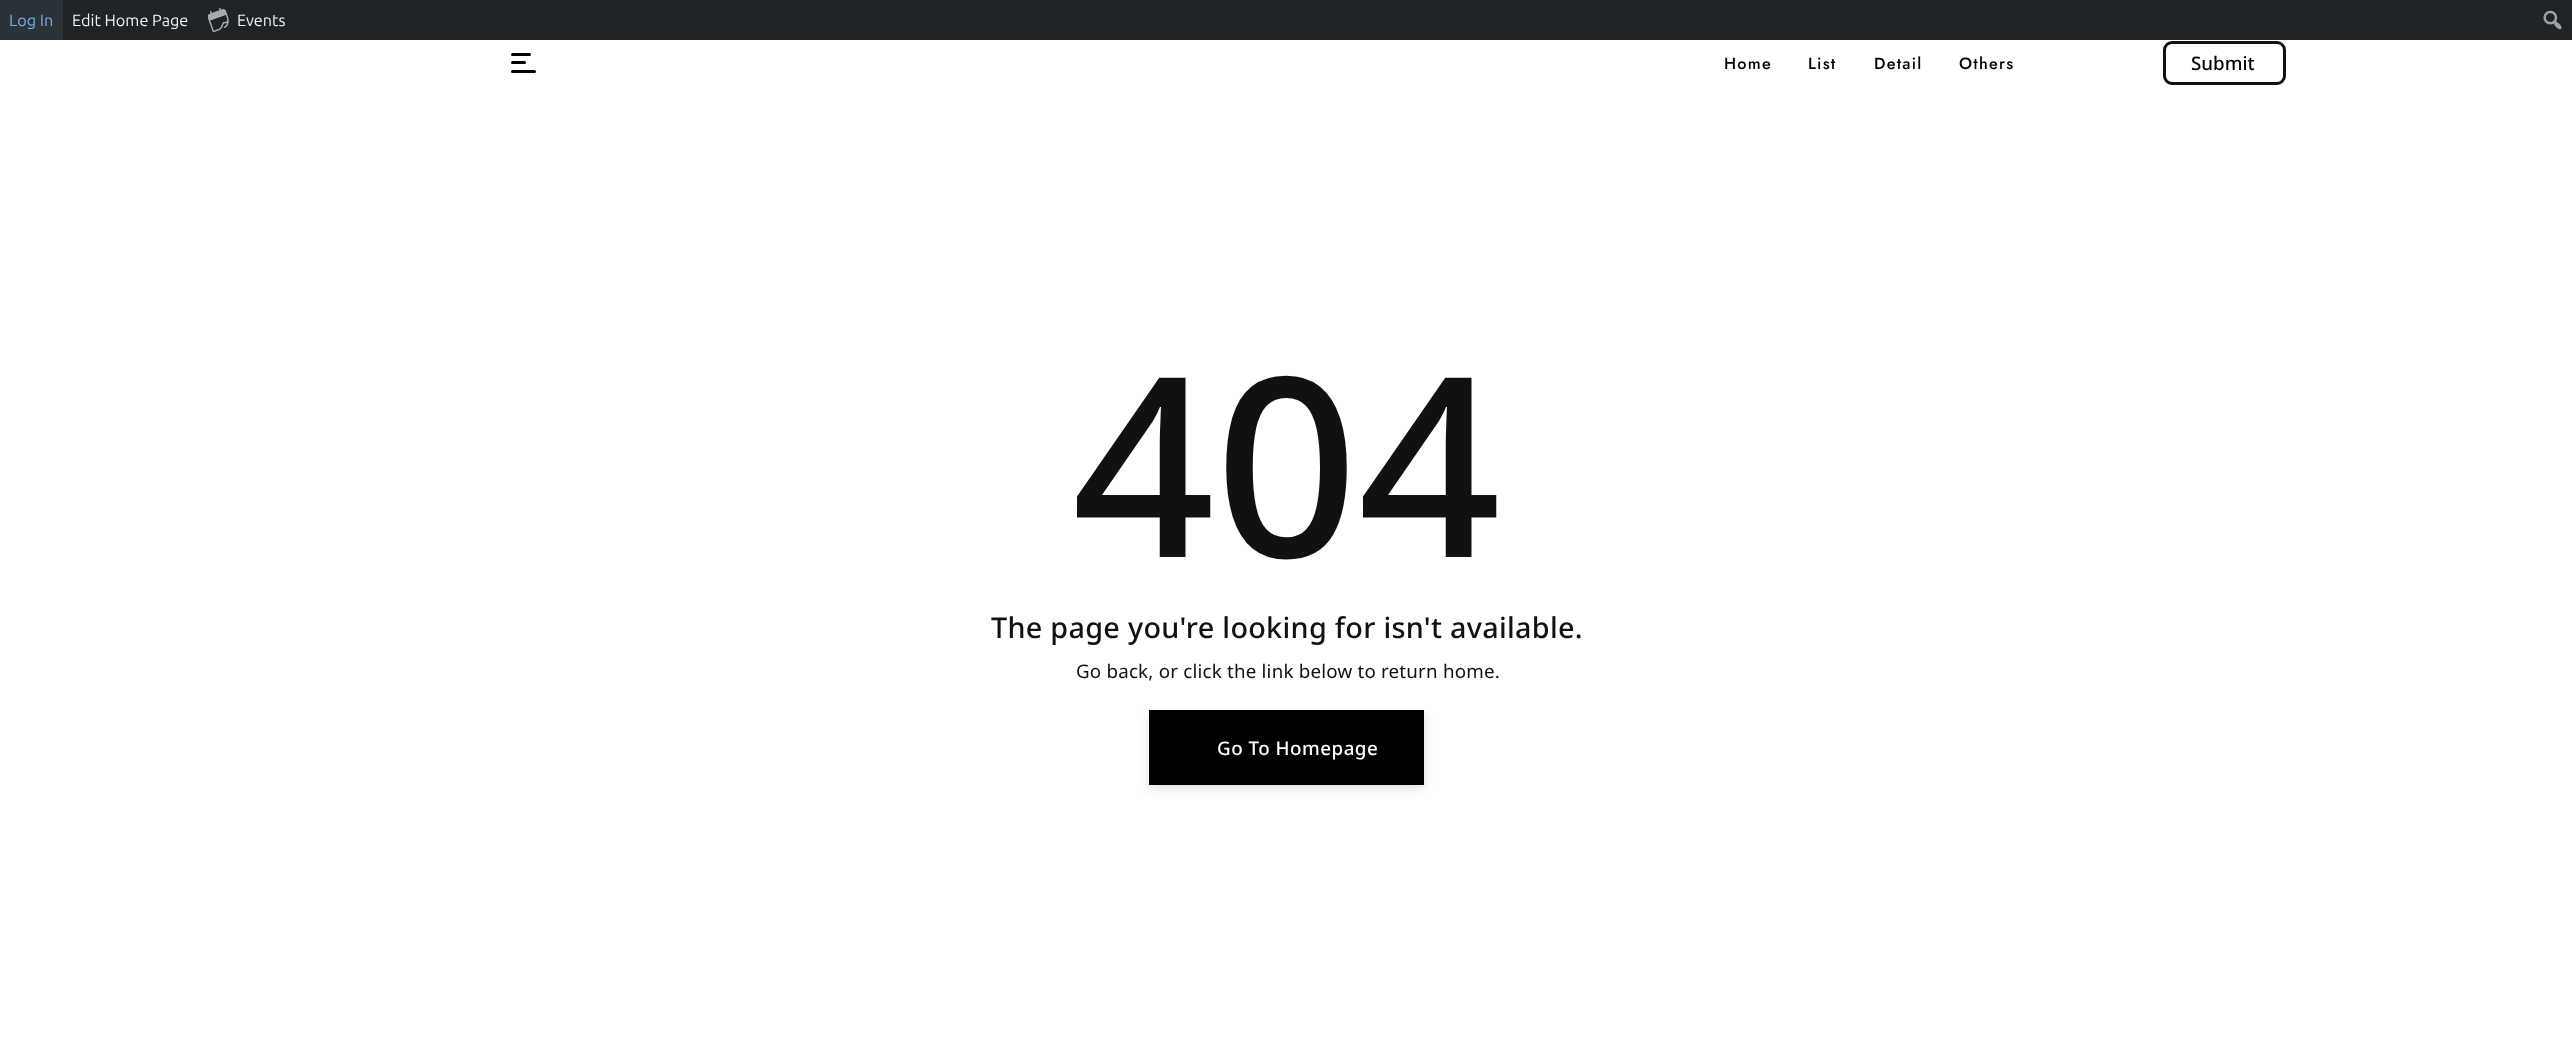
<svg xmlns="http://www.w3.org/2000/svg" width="2572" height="1054">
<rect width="100%" height="100%" fill="#fff"/>
<rect x="63" width="2509" height="40" fill="#1d2327"/>
<rect width="63" height="40" fill="#2c3338"/>
<text x="9" y="26" style="font-family:Ubuntu;font-size:16.25px;fill:#72aee6">Log In</text>
<text x="72" y="26" style="font-family:Ubuntu;font-size:16.25px;fill:#f0f0f1">Edit Home Page</text>
<image x="208" y="8" width="21" height="25" href="media/1.png"/>
<text x="237" y="26" style="font-family:Ubuntu;font-size:16.25px;fill:#f0f0f1">Events</text>
<image x="2543" y="10" width="19" height="20" href="media/2.png"/>
<rect x="511" y="53" width="20" height="3" rx="1.5" fill="#000"/>
<rect x="511" y="61" width="15" height="3" rx="1.5" fill="#000"/>
<rect x="511" y="70" width="25" height="3" rx="1.5" fill="#000"/>
<text x="1724" y="69" style="font-family:Jost;font-size:16.25px;font-weight:500;letter-spacing:1.25px;fill:#000">Home</text>
<text x="1808" y="69" style="font-family:Jost;font-size:16.25px;font-weight:500;letter-spacing:1.25px;fill:#000">List</text>
<text x="1874" y="69" style="font-family:Jost;font-size:16.25px;font-weight:500;letter-spacing:1.25px;fill:#000">Detail</text>
<text x="1959" y="69" style="font-family:Jost;font-size:16.25px;font-weight:500;letter-spacing:1.25px;fill:#000">Others</text>
<rect x="2164.5" y="42.5" width="120" height="41" rx="7.5" fill="none" stroke="#111" stroke-width="3"/>
<text x="2191" y="70" style="font-family:Noto Sans;font-size:18.75px;font-weight:500;fill:#000">Submit</text>
<text x="1072" y="557" style="font-family:Noto Sans;font-size:250px;font-weight:500;fill:#111">404</text>
<text x="991" y="638" style="font-family:Noto Sans;font-size:28.75px;font-weight:500;letter-spacing:0.3px;fill:#111">The page you're looking for isn't available.</text>
<text x="1076" y="678" style="font-family:Noto Sans;font-size:18.75px;letter-spacing:0.2px;fill:#111">Go back, or click the link below to return home.</text>
<rect x="1149" y="714" width="275" height="75" fill="#0000001f" filter="blur(4px)"/>
<rect x="1149" y="710" width="275" height="75" fill="#000"/>
<text x="1217" y="755" style="font-family:Noto Sans;font-size:18.75px;font-weight:500;letter-spacing:0.5px;fill:#fff">Go To Homepage</text>
</svg>
